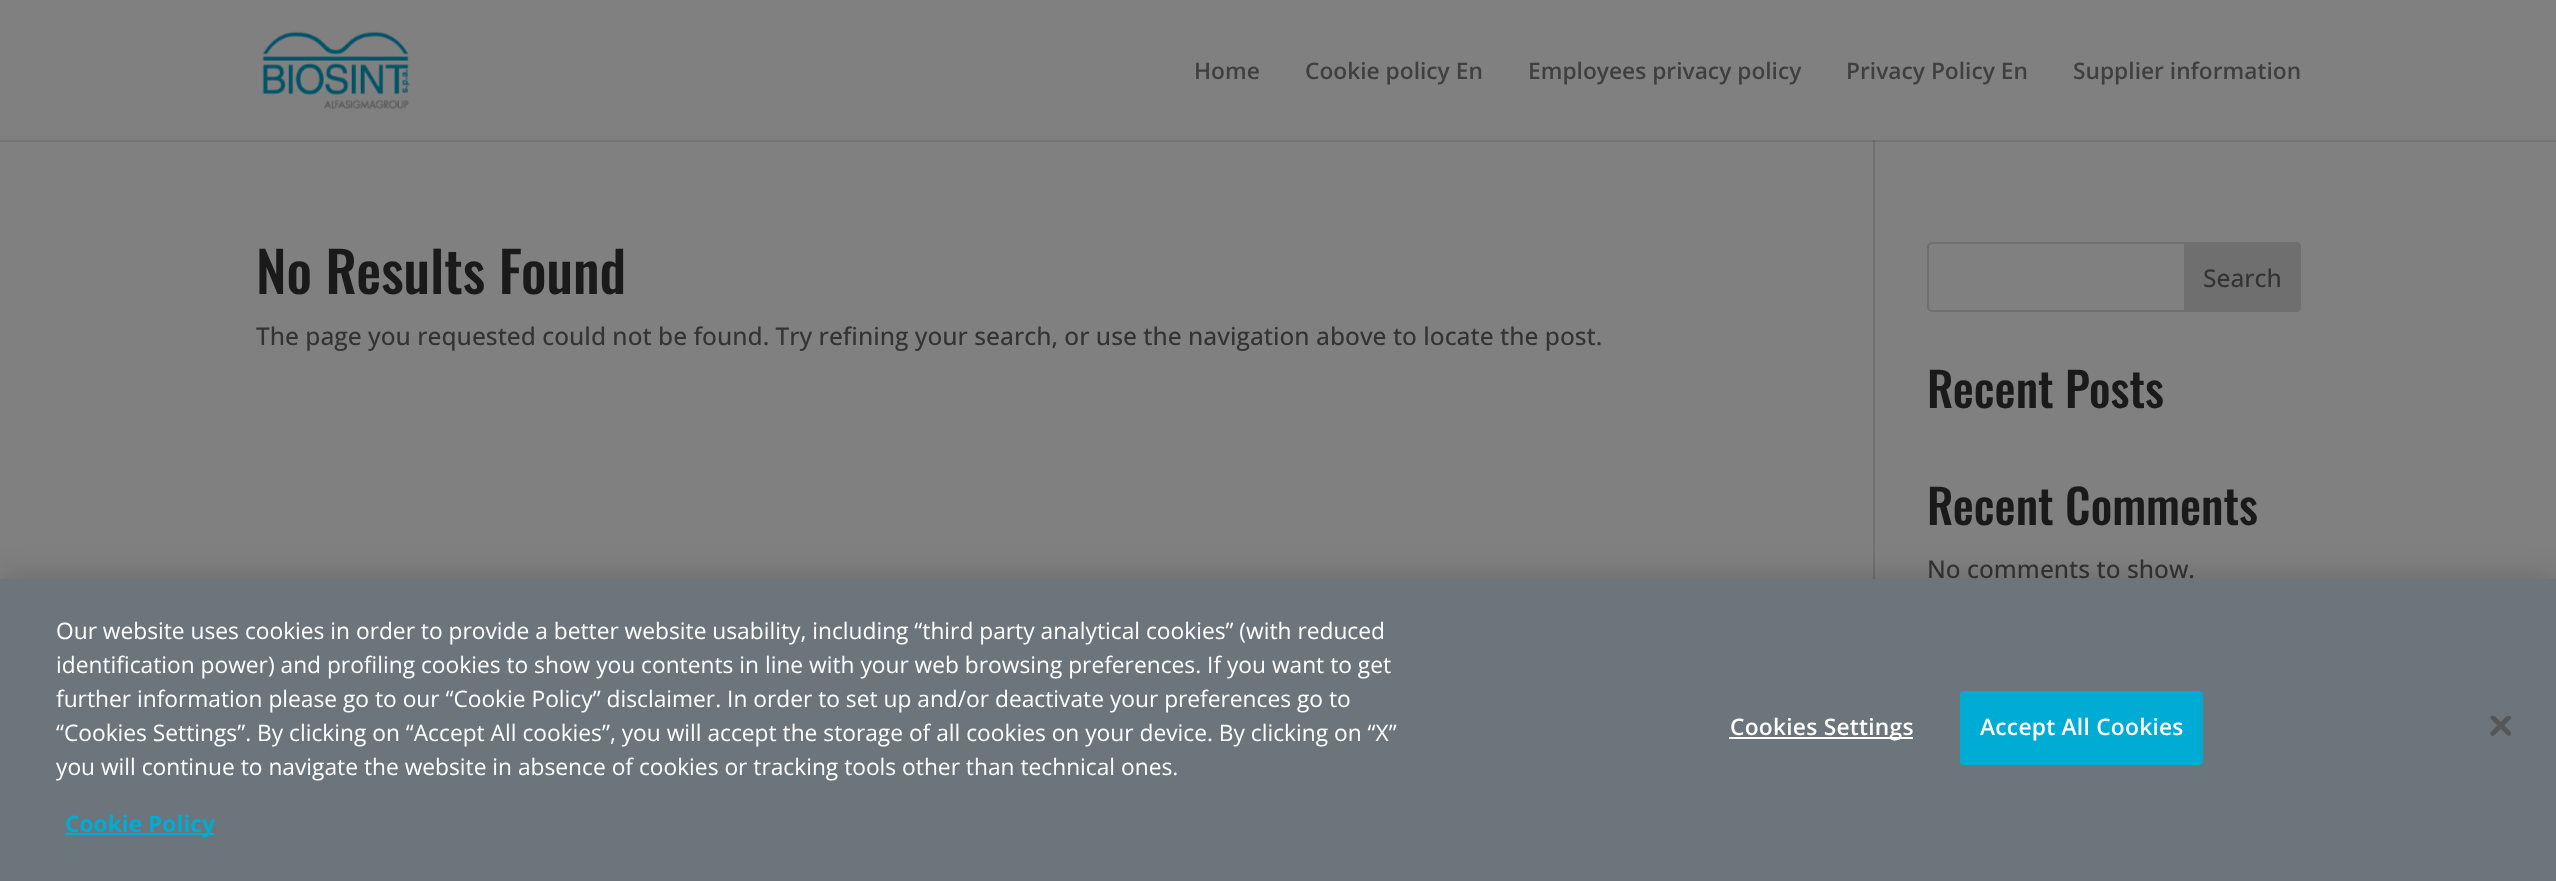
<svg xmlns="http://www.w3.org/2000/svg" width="2556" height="881">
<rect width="100%" height="100%" fill="#808080"/>
<rect x="1873" y="140" width="2" height="439" fill="#717171"/>
<path d="M0 140v2h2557v-140v138z" fill="#0000001a"/>
<image x="262" y="31" width="148" height="78" href="media/1.png"/>
<text x="1194" y="79" style="font-family:Open Sans;font-size:22.75px;font-weight:600;fill:#3f3f3f">Home</text>
<text x="1305" y="79" style="font-family:Open Sans;font-size:22.75px;font-weight:600;fill:#3f3f3f">Cookie policy En</text>
<text x="1528" y="79" style="font-family:Open Sans;font-size:22.75px;font-weight:600;fill:#3f3f3f">Employees privacy policy</text>
<text x="1846" y="79" style="font-family:Open Sans;font-size:22.75px;font-weight:600;fill:#3f3f3f">Privacy Policy En</text>
<text x="2073" y="79" style="font-family:Open Sans;font-size:22.75px;font-weight:600;fill:#3f3f3f">Supplier information</text>
<text x="256" y="294" style="font-family:Oswald;font-size:56px;font-weight:500;fill:#1a1a1a">No Results Found</text>
<text x="256" y="345" style="font-family:Open Sans;font-size:24.5px;font-weight:500;fill:#333">The page you requested could not be found. Try refining your search, or use the navigation above to locate the post.</text>
<rect x="1928" y="243" width="372" height="68" rx="4" fill="none" stroke="#6f6f6f" stroke-width="2"/>
<path d="M2184 242h112c3 0 5 2 5 5v60c0 3-2 5-5 5h-112z" fill="#6f6f6f"/>
<text x="2203" y="287" style="font-family:Open Sans;font-size:24.5px;font-weight:500;fill:#333">Search</text>
<text x="1927" y="408" style="font-family:Oswald;font-size:47.25px;font-weight:500;fill:#1a1a1a">Recent Posts</text>
<text x="1927" y="525" style="font-family:Oswald;font-size:47.25px;font-weight:500;fill:#1a1a1a">Recent Comments</text>
<text x="1927" y="578" style="font-family:Open Sans;font-size:24.5px;font-weight:500;fill:#333">No comments to show.</text>
<rect y="579" width="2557" height="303" fill="#00000033" filter="blur(16px)"/>
<rect y="579" width="2556" height="302" fill="#6b757b"/>
<text x="56" y="639" style="font-family:Open Sans;font-size:22.75px;fill:#fff">Our website uses cookies in order to provide a better website usability, including “third party analytical cookies” (with reduced</text>
<text x="56" y="673" style="font-family:Open Sans;font-size:22.75px;fill:#fff">identification power) and profiling cookies to show you contents in line with your web browsing preferences. If you want to get</text>
<text x="56" y="707" style="font-family:Open Sans;font-size:22.75px;fill:#fff">further information please go to our “Cookie Policy” disclaimer. In order to set up and/or deactivate your preferences go to</text>
<text x="56" y="741" style="font-family:Open Sans;font-size:22.75px;fill:#fff">“Cookies Settings”. By clicking on “Accept All cookies”, you will accept the storage of all cookies on your device. By clicking on “X”</text>
<text x="56" y="775" style="font-family:Open Sans;font-size:22.75px;fill:#fff">you will continue to navigate the website in absence of cookies or tracking tools other than technical ones.</text>
<rect x="65" y="833" width="150" height="2" fill="#00acd4"/>
<text x="65" y="832" style="font-family:Open Sans;font-size:22.75px;font-weight:bold;fill:#00acd4">Cookie Policy</text>
<rect x="1729" y="737" width="184" height="2" fill="#fff"/>
<text x="1730" y="735" style="font-family:Open Sans;font-size:22.75px;font-weight:600;letter-spacing:0.25px;fill:#fff">Cookies Settings</text>
<rect x="1961" y="692" width="241" height="72" rx="3" fill="#00acd4" stroke="#00acd4" stroke-width="2"/>
<text x="1980" y="735" style="font-family:Open Sans;font-size:22.75px;font-weight:600;letter-spacing:0.25px;fill:#fff">Accept All Cookies</text>
<image x="2490" y="716" width="21" height="20" href="media/2.png"/>
</svg>
